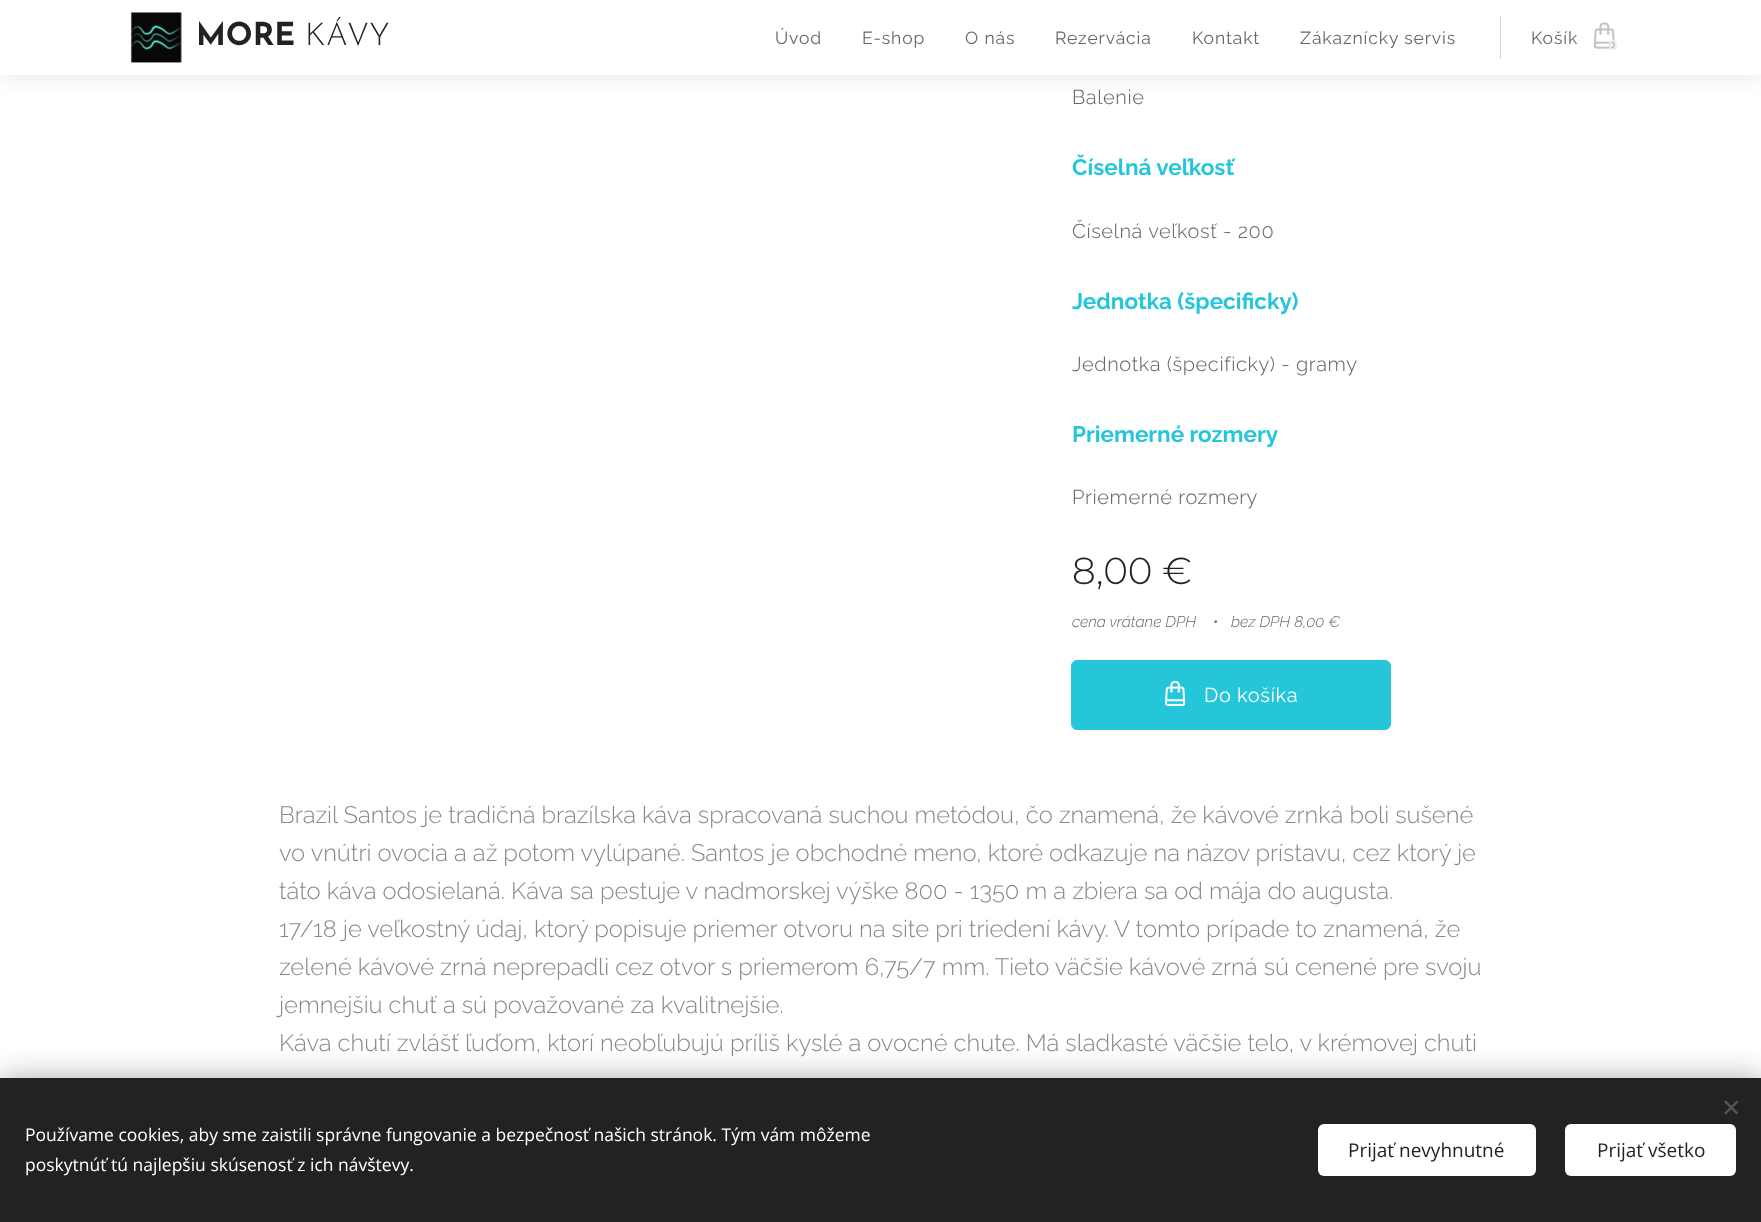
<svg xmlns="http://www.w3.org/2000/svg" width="1761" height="1222">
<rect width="100%" height="100%" fill="#fff"/>
<rect y="6" width="1761" height="75" fill="#00000012" filter="blur(9.5px)"/>
<rect width="1761" height="75" fill="#fff"/>
<image x="130" y="12" width="52" height="51" href="media/1.png"/>
<text x="196" y="45" style="font-family:Josefin Sans;font-size:31.5px;font-weight:bold;fill:#222">MORE</text>
<text x="305" y="45" style="font-family:Josefin Sans;font-size:31.5px;font-weight:300;fill:#222">KÁVY</text>
<text x="775" y="44" style="font-family:Raleway;font-size:17.5px;letter-spacing:0.9px;fill:#666">Úvod</text>
<text x="862" y="44" style="font-family:Raleway;font-size:17.5px;letter-spacing:0.9px;fill:#666">E-shop</text>
<text x="965" y="44" style="font-family:Raleway;font-size:17.5px;letter-spacing:0.9px;fill:#666">O nás</text>
<text x="1055" y="44" style="font-family:Raleway;font-size:17.5px;letter-spacing:0.9px;fill:#666">Rezervácia</text>
<text x="1192" y="44" style="font-family:Raleway;font-size:17.5px;letter-spacing:0.9px;fill:#666">Kontakt</text>
<text x="1300" y="44" style="font-family:Raleway;font-size:17.5px;letter-spacing:0.9px;fill:#666">Zákaznícky servis</text>
<rect x="1500" y="16" width="1" height="43" fill="#d1d1d1"/>
<text x="1531" y="44" style="font-family:Raleway;font-size:17.5px;letter-spacing:0.9px;fill:#666">Košík</text>
<image x="1593" y="22" width="22" height="27" href="media/2.png"/>
<text x="1608" y="50" style="font-family:Montserrat;font-size:14px;font-weight:bold;fill:#ebebeb">0</text>
<text x="1072" y="104" style="font-family:Raleway;font-size:20px;font-weight:300;letter-spacing:0.6px;fill:#666">Balenie</text>
<text x="1072" y="175" style="font-family:Raleway;font-size:22.5px;font-weight:bold;fill:#26c6da">Číselná veľkosť</text>
<text x="1072" y="238" style="font-family:Raleway;font-size:20px;font-weight:300;letter-spacing:0.6px;fill:#666">Číselná veľkosť - 200</text>
<text x="1072" y="309" style="font-family:Raleway;font-size:22.5px;font-weight:bold;fill:#26c6da">Jednotka (špecificky)</text>
<text x="1072" y="371" style="font-family:Raleway;font-size:20px;font-weight:300;letter-spacing:0.6px;fill:#666">Jednotka (špecificky) - gramy</text>
<text x="1072" y="442" style="font-family:Raleway;font-size:22.5px;font-weight:bold;fill:#26c6da">Priemerné rozmery</text>
<text x="1072" y="504" style="font-family:Raleway;font-size:20px;font-weight:300;letter-spacing:0.6px;fill:#666">Priemerné rozmery</text>
<text x="1072" y="584" style="font-family:Montserrat;font-size:37.5px;font-weight:300;fill:#222">8,00 €</text>
<text x="1072" y="627" style="font-family:Raleway;font-size:15.5px;font-weight:300;font-style:italic;fill:#666">cena vrátane DPH</text>
<text x="1213" y="627" style="font-family:Raleway;font-size:15.5px;font-weight:300;font-style:italic;fill:#666">•</text>
<text x="1231" y="627" style="font-family:Raleway;font-size:15.5px;font-weight:300;font-style:italic;fill:#666">bez DPH 8,00 €</text>
<rect x="1071.5" y="660.5" width="319" height="69" rx="5.5" fill="#26c6da" stroke="#26c6da"/>
<image x="1165" y="680" width="21" height="26" href="media/3.png"/>
<text x="1204" y="702" style="font-family:Raleway;font-size:20px;letter-spacing:0.6px;fill:#fff">Do košíka</text>
<text x="279" y="823" style="font-family:'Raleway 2';font-size:23.75px;font-weight:300;fill:#888">Brazil Santos je tradičná brazílska káva spracovaná suchou metódou, čo znamená, že kávové zrnká boli sušené</text>
<text x="279" y="861" style="font-family:'Raleway 2';font-size:23.75px;font-weight:300;fill:#888">vo vnútri ovocia a až potom vylúpané. Santos je obchodné meno, ktoré odkazuje na názov prístavu, cez ktorý je</text>
<text x="279" y="899" style="font-family:'Raleway 2';font-size:23.75px;font-weight:300;fill:#888">táto káva odosielaná. Káva sa pestuje v nadmorskej výške 800 - 1350 m a zbiera sa od mája do augusta.</text>
<text x="279" y="937" style="font-family:'Raleway 2';font-size:23.75px;font-weight:300;fill:#888">17/18 je veľkostný údaj, ktorý popisuje priemer otvoru na site pri triedení kávy. V tomto prípade to znamená, že</text>
<text x="279" y="975" style="font-family:'Raleway 2';font-size:23.75px;font-weight:300;fill:#888">zelené kávové zrná neprepadli cez otvor s priemerom 6,75/7 mm. Tieto väčšie kávové zrná sú cenené pre svoju</text>
<text x="279" y="1013" style="font-family:'Raleway 2';font-size:23.75px;font-weight:300;fill:#888">jemnejšiu chuť a sú považované za kvalitnejšie.</text>
<text x="279" y="1051" style="font-family:'Raleway 2';font-size:23.75px;font-weight:300;fill:#888">Káva chutí zvlášť ľuďom, ktorí neobľubujú príliš kyslé a ovocné chute. Má sladkasté väčšie telo, v krémovej chuti</text>
<rect y="1078" width="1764" height="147" fill="#00000054" filter="blur(15.5px)"/>
<rect y="1078" width="1761" height="144" fill="#222"/>
<path d="M1724 1113l12.5-12.5l2 1.5l-12.5 12.5z" fill="#555"/>
<path d="M1726 1100.5l12.5 12.5l-2 1.5l-12.5-12.5z" fill="#555"/>
<text x="25" y="1141" style="font-family:Open Sans;font-size:17.5px;fill:#fff">Používame cookies, aby sme zaistili správne fungovanie a bezpečnosť našich stránok. Tým vám môžeme</text>
<text x="25" y="1171" style="font-family:Open Sans;font-size:17.5px;fill:#fff">poskytnúť tú najlepšiu skúsenosť z ich návštevy.</text>
<rect x="1318" y="1124" width="218" height="52" rx="6" fill="#fff"/>
<text x="1348" y="1157" style="font-family:Open Sans;font-size:19px;fill:#222">Prijať nevyhnutné</text>
<rect x="1565" y="1124" width="171" height="52" rx="6" fill="#fff"/>
<text x="1597" y="1157" style="font-family:Open Sans;font-size:19px;fill:#222">Prijať všetko</text>
</svg>
